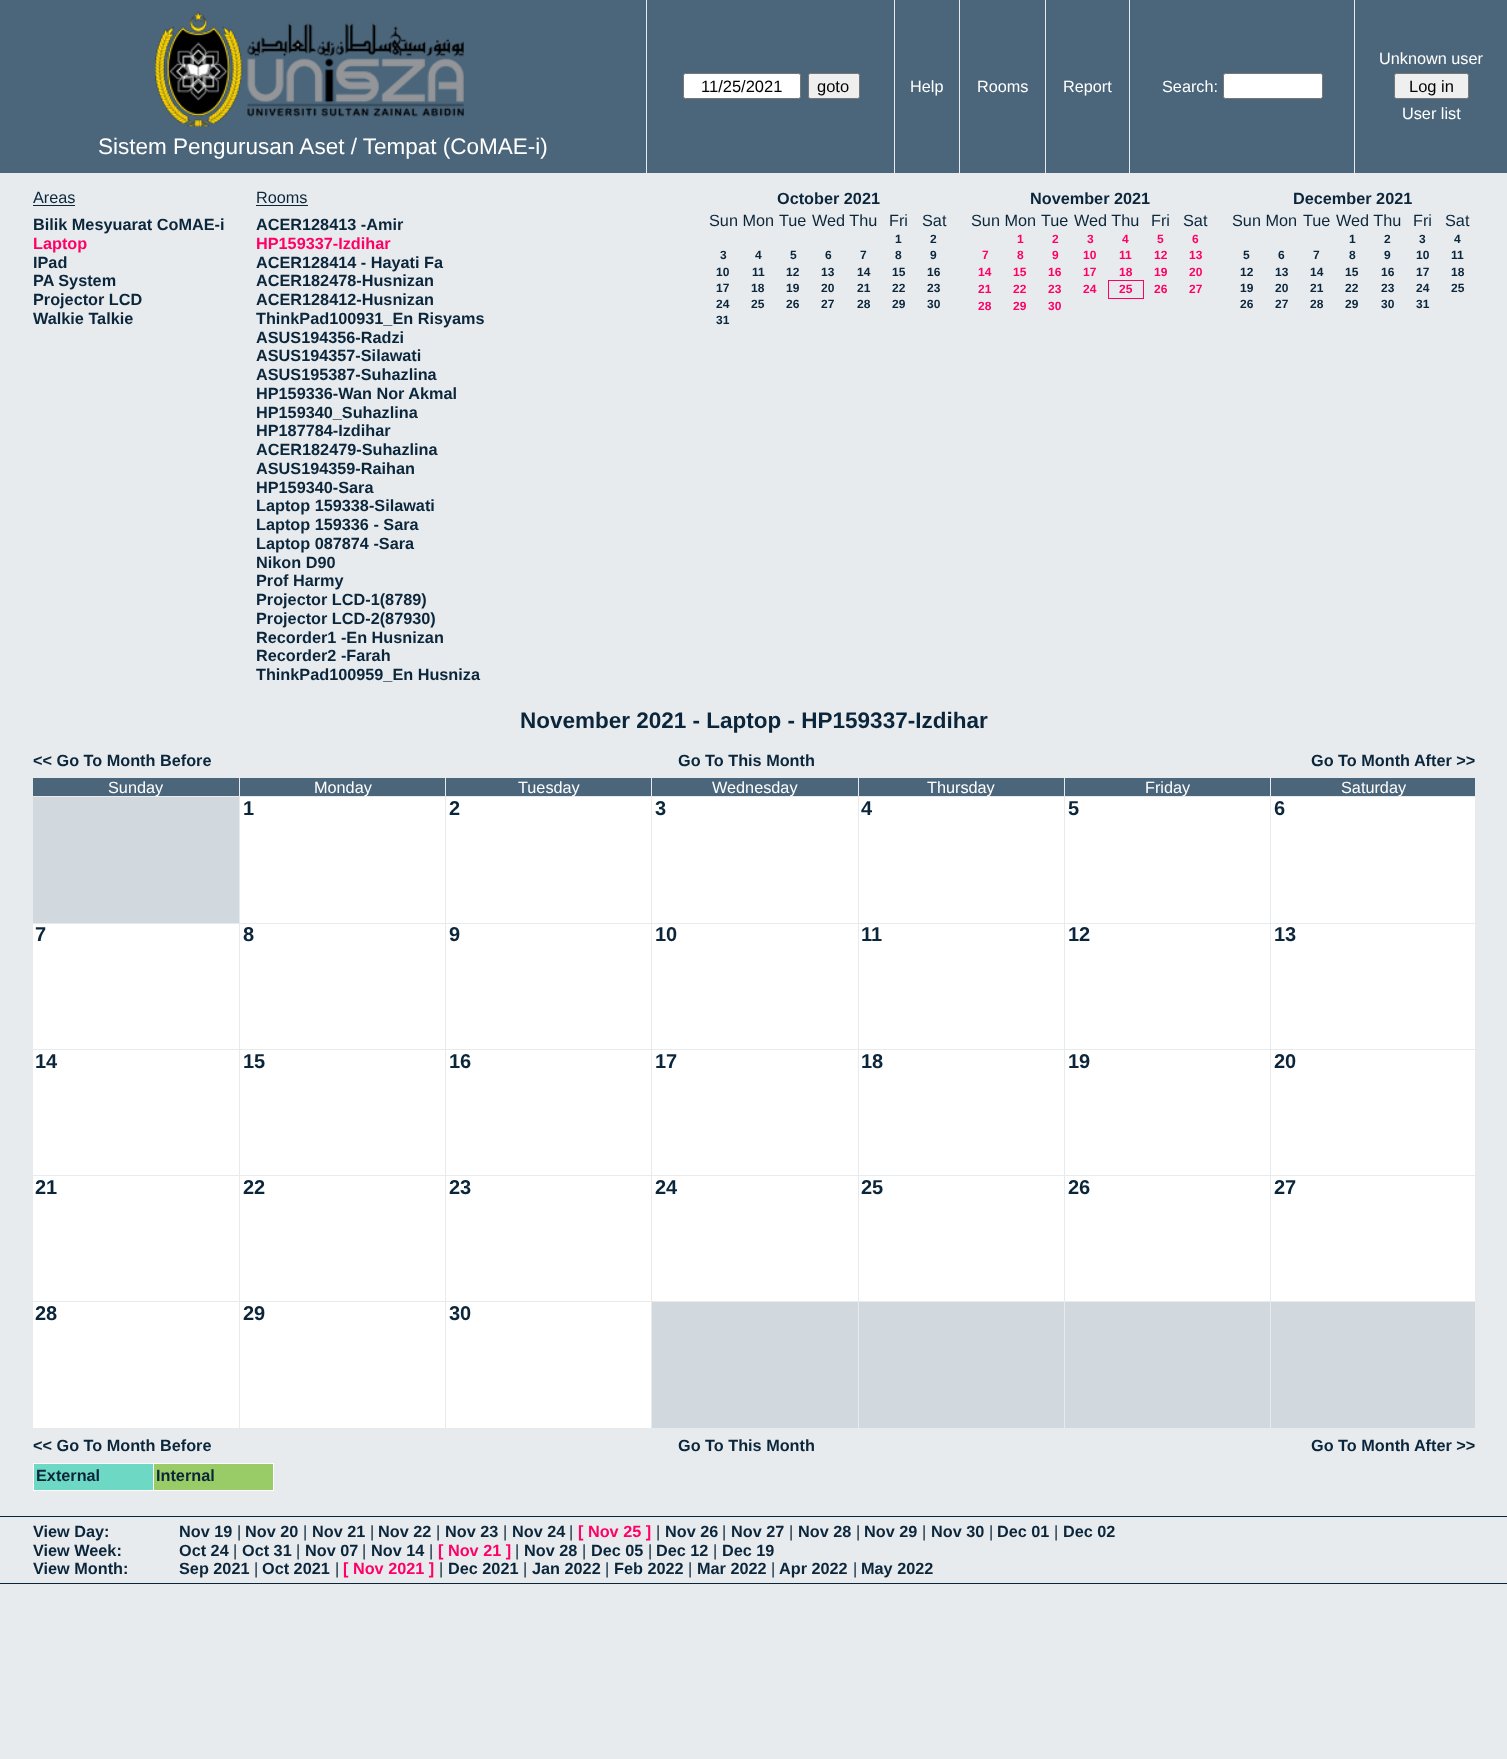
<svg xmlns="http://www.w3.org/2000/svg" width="1507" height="1759">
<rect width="100%" height="100%" fill="#e7ebee"/>
<rect width="1507" height="173" fill="#4b667b"/>
<rect x="646" width="1" height="173" fill="#e7ebee"/>
<rect x="683.5" y="73.5" width="117" height="25" rx="2" fill="#fff" stroke="#767676"/>
<text x="701" y="92" style="font-family:Liberation Sans;font-size:16.5px;fill:#000">11/25/2021</text>
<rect x="808.5" y="73.5" width="51" height="25" rx="2" fill="#efefef" stroke="#767676"/>
<text x="817" y="92" style="font-family:Liberation Sans;font-size:16.5px;fill:#000">goto</text>
<rect x="894" width="1" height="173" fill="#e7ebee"/>
<text x="910" y="92" style="font-family:Liberation Sans;font-size:16.25px;fill:#fff">Help</text>
<rect x="959" width="1" height="173" fill="#e7ebee"/>
<text x="977" y="92" style="font-family:Liberation Sans;font-size:16.25px;fill:#fff">Rooms</text>
<rect x="1045" width="1" height="173" fill="#e7ebee"/>
<text x="1063" y="92" style="font-family:Liberation Sans;font-size:16.25px;fill:#fff">Report</text>
<rect x="1129" width="1" height="173" fill="#e7ebee"/>
<text x="1162" y="92" style="font-family:Liberation Sans;font-size:16.25px;fill:#fff">Search:</text>
<rect x="1223.5" y="73.5" width="99" height="25" rx="2" fill="#fff" stroke="#767676"/>
<rect x="1354" width="1" height="173" fill="#e7ebee"/>
<text x="1379" y="64" style="font-family:Liberation Sans;font-size:16.25px;fill:#fff">Unknown user</text>
<rect x="1394.5" y="73.5" width="74" height="25" rx="2" fill="#efefef" stroke="#767676"/>
<text x="1409" y="92" style="font-family:Liberation Sans;font-size:16.5px;fill:#000">Log in</text>
<text x="1402" y="119" style="font-family:Liberation Sans;font-size:16.25px;fill:#fff">User list</text>
<image x="154" y="11" width="310" height="116" href="media/1.png"/>
<text x="98" y="154" style="font-family:Liberation Sans;font-size:22.5px;fill:#fff">Sistem Pengurusan Aset / Tempat (CoMAE-i)</text>
<text x="33" y="203" style="font-family:Liberation Sans;font-size:16.25px;fill:#0b263b">Areas</text>
<rect x="33" y="205" width="42" height="1" fill="#0b263b"/>
<text x="33" y="230" style="font-family:Liberation Sans;font-size:16.25px;font-weight:bold;fill:#0b263b">Bilik Mesyuarat CoMAE-i</text>
<text x="33" y="249" style="font-family:Liberation Sans;font-size:16.25px;font-weight:bold;fill:#f06">Laptop</text>
<text x="33" y="268" style="font-family:Liberation Sans;font-size:16.25px;font-weight:bold;fill:#0b263b">IPad</text>
<text x="33" y="286" style="font-family:Liberation Sans;font-size:16.25px;font-weight:bold;fill:#0b263b">PA System</text>
<text x="33" y="305" style="font-family:Liberation Sans;font-size:16.25px;font-weight:bold;fill:#0b263b">Projector LCD</text>
<text x="33" y="324" style="font-family:Liberation Sans;font-size:16.25px;font-weight:bold;fill:#0b263b">Walkie Talkie</text>
<text x="256" y="203" style="font-family:Liberation Sans;font-size:16.25px;fill:#0b263b">Rooms</text>
<rect x="256" y="205" width="52" height="1" fill="#0b263b"/>
<text x="256" y="230" style="font-family:Liberation Sans;font-size:16.25px;font-weight:bold;fill:#0b263b">ACER128413 -Amir</text>
<text x="256" y="249" style="font-family:Liberation Sans;font-size:16.25px;font-weight:bold;fill:#f06">HP159337-Izdihar</text>
<text x="256" y="268" style="font-family:Liberation Sans;font-size:16.25px;font-weight:bold;fill:#0b263b">ACER128414 - Hayati Fa</text>
<text x="256" y="286" style="font-family:Liberation Sans;font-size:16.25px;font-weight:bold;fill:#0b263b">ACER182478-Husnizan</text>
<text x="256" y="305" style="font-family:Liberation Sans;font-size:16.25px;font-weight:bold;fill:#0b263b">ACER128412-Husnizan</text>
<text x="256" y="324" style="font-family:Liberation Sans;font-size:16.25px;font-weight:bold;fill:#0b263b">ThinkPad100931_En Risyams</text>
<text x="256" y="343" style="font-family:Liberation Sans;font-size:16.25px;font-weight:bold;fill:#0b263b">ASUS194356-Radzi</text>
<text x="256" y="361" style="font-family:Liberation Sans;font-size:16.25px;font-weight:bold;fill:#0b263b">ASUS194357-Silawati</text>
<text x="256" y="380" style="font-family:Liberation Sans;font-size:16.25px;font-weight:bold;fill:#0b263b">ASUS195387-Suhazlina</text>
<text x="256" y="399" style="font-family:Liberation Sans;font-size:16.25px;font-weight:bold;fill:#0b263b">HP159336-Wan Nor Akmal</text>
<text x="256" y="418" style="font-family:Liberation Sans;font-size:16.25px;font-weight:bold;fill:#0b263b">HP159340_Suhazlina</text>
<text x="256" y="436" style="font-family:Liberation Sans;font-size:16.25px;font-weight:bold;fill:#0b263b">HP187784-Izdihar</text>
<text x="256" y="455" style="font-family:Liberation Sans;font-size:16.25px;font-weight:bold;fill:#0b263b">ACER182479-Suhazlina</text>
<text x="256" y="474" style="font-family:Liberation Sans;font-size:16.25px;font-weight:bold;fill:#0b263b">ASUS194359-Raihan</text>
<text x="256" y="493" style="font-family:Liberation Sans;font-size:16.25px;font-weight:bold;fill:#0b263b">HP159340-Sara</text>
<text x="256" y="511" style="font-family:Liberation Sans;font-size:16.25px;font-weight:bold;fill:#0b263b">Laptop 159338-Silawati</text>
<text x="256" y="530" style="font-family:Liberation Sans;font-size:16.25px;font-weight:bold;fill:#0b263b">Laptop 159336 - Sara</text>
<text x="256" y="549" style="font-family:Liberation Sans;font-size:16.25px;font-weight:bold;fill:#0b263b">Laptop 087874 -Sara</text>
<text x="256" y="568" style="font-family:Liberation Sans;font-size:16.25px;font-weight:bold;fill:#0b263b">Nikon D90</text>
<text x="256" y="586" style="font-family:Liberation Sans;font-size:16.25px;font-weight:bold;fill:#0b263b">Prof Harmy</text>
<text x="256" y="605" style="font-family:Liberation Sans;font-size:16.25px;font-weight:bold;fill:#0b263b">Projector LCD-1(8789)</text>
<text x="256" y="624" style="font-family:Liberation Sans;font-size:16.25px;font-weight:bold;fill:#0b263b">Projector LCD-2(87930)</text>
<text x="256" y="643" style="font-family:Liberation Sans;font-size:16.25px;font-weight:bold;fill:#0b263b">Recorder1 -En Husnizan</text>
<text x="256" y="661" style="font-family:Liberation Sans;font-size:16.25px;font-weight:bold;fill:#0b263b">Recorder2 -Farah</text>
<text x="256" y="680" style="font-family:Liberation Sans;font-size:16.25px;font-weight:bold;fill:#0b263b">ThinkPad100959_En Husniza</text>
<text x="777" y="204" style="font-family:Liberation Sans;font-size:16.25px;font-weight:bold;fill:#0b263b">October 2021</text>
<text x="709" y="226" style="font-family:Liberation Sans;font-size:16.25px;fill:#0b263b">Sun Mon</text>
<text x="779" y="226" style="font-family:Liberation Sans;font-size:16.25px;fill:#0b263b">Tue</text>
<text x="812" y="226" style="font-family:Liberation Sans;font-size:16.25px;fill:#0b263b">Wed Thu</text>
<text x="889" y="226" style="font-family:Liberation Sans;font-size:16.25px;fill:#0b263b">Fri</text>
<text x="922" y="226" style="font-family:Liberation Sans;font-size:16.25px;fill:#0b263b">Sat</text>
<text x="895" y="243" style="font-family:Liberation Sans;font-size:12px;font-weight:bold;fill:#0b263b">1</text>
<text x="930" y="243" style="font-family:Liberation Sans;font-size:12px;font-weight:bold;fill:#0b263b">2</text>
<text x="720" y="259" style="font-family:Liberation Sans;font-size:12px;font-weight:bold;fill:#0b263b">3</text>
<text x="755" y="259" style="font-family:Liberation Sans;font-size:12px;font-weight:bold;fill:#0b263b">4</text>
<text x="790" y="259" style="font-family:Liberation Sans;font-size:12px;font-weight:bold;fill:#0b263b">5</text>
<text x="825" y="259" style="font-family:Liberation Sans;font-size:12px;font-weight:bold;fill:#0b263b">6</text>
<text x="860" y="259" style="font-family:Liberation Sans;font-size:12px;font-weight:bold;fill:#0b263b">7</text>
<text x="895" y="259" style="font-family:Liberation Sans;font-size:12px;font-weight:bold;fill:#0b263b">8</text>
<text x="930" y="259" style="font-family:Liberation Sans;font-size:12px;font-weight:bold;fill:#0b263b">9</text>
<text x="716" y="276" style="font-family:Liberation Sans;font-size:12px;font-weight:bold;fill:#0b263b">10</text>
<text x="752" y="276" style="font-family:Liberation Sans;font-size:12px;font-weight:bold;fill:#0b263b">11</text>
<text x="786" y="276" style="font-family:Liberation Sans;font-size:12px;font-weight:bold;fill:#0b263b">12</text>
<text x="821" y="276" style="font-family:Liberation Sans;font-size:12px;font-weight:bold;fill:#0b263b">13</text>
<text x="857" y="276" style="font-family:Liberation Sans;font-size:12px;font-weight:bold;fill:#0b263b">14</text>
<text x="892" y="276" style="font-family:Liberation Sans;font-size:12px;font-weight:bold;fill:#0b263b">15</text>
<text x="927" y="276" style="font-family:Liberation Sans;font-size:12px;font-weight:bold;fill:#0b263b">16</text>
<text x="716" y="292" style="font-family:Liberation Sans;font-size:12px;font-weight:bold;fill:#0b263b">17</text>
<text x="751" y="292" style="font-family:Liberation Sans;font-size:12px;font-weight:bold;fill:#0b263b">18</text>
<text x="786" y="292" style="font-family:Liberation Sans;font-size:12px;font-weight:bold;fill:#0b263b">19</text>
<text x="821" y="292" style="font-family:Liberation Sans;font-size:12px;font-weight:bold;fill:#0b263b">20</text>
<text x="857" y="292" style="font-family:Liberation Sans;font-size:12px;font-weight:bold;fill:#0b263b">21</text>
<text x="892" y="292" style="font-family:Liberation Sans;font-size:12px;font-weight:bold;fill:#0b263b">22</text>
<text x="927" y="292" style="font-family:Liberation Sans;font-size:12px;font-weight:bold;fill:#0b263b">23</text>
<text x="716" y="308" style="font-family:Liberation Sans;font-size:12px;font-weight:bold;fill:#0b263b">24</text>
<text x="751" y="308" style="font-family:Liberation Sans;font-size:12px;font-weight:bold;fill:#0b263b">25</text>
<text x="786" y="308" style="font-family:Liberation Sans;font-size:12px;font-weight:bold;fill:#0b263b">26</text>
<text x="821" y="308" style="font-family:Liberation Sans;font-size:12px;font-weight:bold;fill:#0b263b">27</text>
<text x="857" y="308" style="font-family:Liberation Sans;font-size:12px;font-weight:bold;fill:#0b263b">28</text>
<text x="892" y="308" style="font-family:Liberation Sans;font-size:12px;font-weight:bold;fill:#0b263b">29</text>
<text x="927" y="308" style="font-family:Liberation Sans;font-size:12px;font-weight:bold;fill:#0b263b">30</text>
<text x="716" y="324" style="font-family:Liberation Sans;font-size:12px;font-weight:bold;fill:#0b263b">31</text>
<text x="1030" y="204" style="font-family:Liberation Sans;font-size:16.25px;font-weight:bold;fill:#0b263b">November 2021</text>
<text x="971" y="226" style="font-family:Liberation Sans;font-size:16.25px;fill:#0b263b">Sun Mon</text>
<text x="1041" y="226" style="font-family:Liberation Sans;font-size:16.25px;fill:#0b263b">Tue</text>
<text x="1074" y="226" style="font-family:Liberation Sans;font-size:16.25px;fill:#0b263b">Wed Thu</text>
<text x="1151" y="226" style="font-family:Liberation Sans;font-size:16.25px;fill:#0b263b">Fri</text>
<text x="1183" y="226" style="font-family:Liberation Sans;font-size:16.25px;fill:#0b263b">Sat</text>
<text x="1017" y="243" style="font-family:Liberation Sans;font-size:12px;font-weight:bold;fill:#f06">1</text>
<text x="1052" y="243" style="font-family:Liberation Sans;font-size:12px;font-weight:bold;fill:#f06">2</text>
<text x="1087" y="243" style="font-family:Liberation Sans;font-size:12px;font-weight:bold;fill:#f06">3</text>
<text x="1122" y="243" style="font-family:Liberation Sans;font-size:12px;font-weight:bold;fill:#f06">4</text>
<text x="1157" y="243" style="font-family:Liberation Sans;font-size:12px;font-weight:bold;fill:#f06">5</text>
<text x="1192" y="243" style="font-family:Liberation Sans;font-size:12px;font-weight:bold;fill:#f06">6</text>
<text x="982" y="259" style="font-family:Liberation Sans;font-size:12px;font-weight:bold;fill:#f06">7</text>
<text x="1017" y="259" style="font-family:Liberation Sans;font-size:12px;font-weight:bold;fill:#f06">8</text>
<text x="1052" y="259" style="font-family:Liberation Sans;font-size:12px;font-weight:bold;fill:#f06">9</text>
<text x="1083" y="259" style="font-family:Liberation Sans;font-size:12px;font-weight:bold;fill:#f06">10</text>
<text x="1119" y="259" style="font-family:Liberation Sans;font-size:12px;font-weight:bold;fill:#f06">11</text>
<text x="1154" y="259" style="font-family:Liberation Sans;font-size:12px;font-weight:bold;fill:#f06">12</text>
<text x="1189" y="259" style="font-family:Liberation Sans;font-size:12px;font-weight:bold;fill:#f06">13</text>
<text x="978" y="276" style="font-family:Liberation Sans;font-size:12px;font-weight:bold;fill:#f06">14</text>
<text x="1013" y="276" style="font-family:Liberation Sans;font-size:12px;font-weight:bold;fill:#f06">15</text>
<text x="1048" y="276" style="font-family:Liberation Sans;font-size:12px;font-weight:bold;fill:#f06">16</text>
<text x="1083" y="276" style="font-family:Liberation Sans;font-size:12px;font-weight:bold;fill:#f06">17</text>
<text x="1119" y="276" style="font-family:Liberation Sans;font-size:12px;font-weight:bold;fill:#f06">18</text>
<text x="1154" y="276" style="font-family:Liberation Sans;font-size:12px;font-weight:bold;fill:#f06">19</text>
<text x="1189" y="276" style="font-family:Liberation Sans;font-size:12px;font-weight:bold;fill:#f06">20</text>
<text x="978" y="293" style="font-family:Liberation Sans;font-size:12px;font-weight:bold;fill:#f06">21</text>
<text x="1013" y="293" style="font-family:Liberation Sans;font-size:12px;font-weight:bold;fill:#f06">22</text>
<text x="1048" y="293" style="font-family:Liberation Sans;font-size:12px;font-weight:bold;fill:#f06">23</text>
<text x="1083" y="293" style="font-family:Liberation Sans;font-size:12px;font-weight:bold;fill:#f06">24</text>
<rect x="1108" y="280" width="36" height="1" fill="#f06"/>
<rect x="1143" y="280" width="1" height="19" fill="#f06"/>
<rect x="1108" y="298" width="36" height="1" fill="#f06"/>
<rect x="1108" y="280" width="1" height="19" fill="#f06"/>
<text x="1119" y="293" style="font-family:Liberation Sans;font-size:12px;font-weight:bold;fill:#f06">25</text>
<text x="1154" y="293" style="font-family:Liberation Sans;font-size:12px;font-weight:bold;fill:#f06">26</text>
<text x="1189" y="293" style="font-family:Liberation Sans;font-size:12px;font-weight:bold;fill:#f06">27</text>
<text x="978" y="310" style="font-family:Liberation Sans;font-size:12px;font-weight:bold;fill:#f06">28</text>
<text x="1013" y="310" style="font-family:Liberation Sans;font-size:12px;font-weight:bold;fill:#f06">29</text>
<text x="1048" y="310" style="font-family:Liberation Sans;font-size:12px;font-weight:bold;fill:#f06">30</text>
<text x="1293" y="204" style="font-family:Liberation Sans;font-size:16.25px;font-weight:bold;fill:#0b263b">December 2021</text>
<text x="1232" y="226" style="font-family:Liberation Sans;font-size:16.25px;fill:#0b263b">Sun Mon</text>
<text x="1303" y="226" style="font-family:Liberation Sans;font-size:16.25px;fill:#0b263b">Tue</text>
<text x="1336" y="226" style="font-family:Liberation Sans;font-size:16.25px;fill:#0b263b">Wed Thu</text>
<text x="1413" y="226" style="font-family:Liberation Sans;font-size:16.25px;fill:#0b263b">Fri</text>
<text x="1445" y="226" style="font-family:Liberation Sans;font-size:16.25px;fill:#0b263b">Sat</text>
<text x="1349" y="243" style="font-family:Liberation Sans;font-size:12px;font-weight:bold;fill:#0b263b">1</text>
<text x="1384" y="243" style="font-family:Liberation Sans;font-size:12px;font-weight:bold;fill:#0b263b">2</text>
<text x="1419" y="243" style="font-family:Liberation Sans;font-size:12px;font-weight:bold;fill:#0b263b">3</text>
<text x="1454" y="243" style="font-family:Liberation Sans;font-size:12px;font-weight:bold;fill:#0b263b">4</text>
<text x="1243" y="259" style="font-family:Liberation Sans;font-size:12px;font-weight:bold;fill:#0b263b">5</text>
<text x="1278" y="259" style="font-family:Liberation Sans;font-size:12px;font-weight:bold;fill:#0b263b">6</text>
<text x="1313" y="259" style="font-family:Liberation Sans;font-size:12px;font-weight:bold;fill:#0b263b">7</text>
<text x="1349" y="259" style="font-family:Liberation Sans;font-size:12px;font-weight:bold;fill:#0b263b">8</text>
<text x="1384" y="259" style="font-family:Liberation Sans;font-size:12px;font-weight:bold;fill:#0b263b">9</text>
<text x="1416" y="259" style="font-family:Liberation Sans;font-size:12px;font-weight:bold;fill:#0b263b">10</text>
<text x="1451" y="259" style="font-family:Liberation Sans;font-size:12px;font-weight:bold;fill:#0b263b">11</text>
<text x="1240" y="276" style="font-family:Liberation Sans;font-size:12px;font-weight:bold;fill:#0b263b">12</text>
<text x="1275" y="276" style="font-family:Liberation Sans;font-size:12px;font-weight:bold;fill:#0b263b">13</text>
<text x="1310" y="276" style="font-family:Liberation Sans;font-size:12px;font-weight:bold;fill:#0b263b">14</text>
<text x="1345" y="276" style="font-family:Liberation Sans;font-size:12px;font-weight:bold;fill:#0b263b">15</text>
<text x="1381" y="276" style="font-family:Liberation Sans;font-size:12px;font-weight:bold;fill:#0b263b">16</text>
<text x="1416" y="276" style="font-family:Liberation Sans;font-size:12px;font-weight:bold;fill:#0b263b">17</text>
<text x="1451" y="276" style="font-family:Liberation Sans;font-size:12px;font-weight:bold;fill:#0b263b">18</text>
<text x="1240" y="292" style="font-family:Liberation Sans;font-size:12px;font-weight:bold;fill:#0b263b">19</text>
<text x="1275" y="292" style="font-family:Liberation Sans;font-size:12px;font-weight:bold;fill:#0b263b">20</text>
<text x="1310" y="292" style="font-family:Liberation Sans;font-size:12px;font-weight:bold;fill:#0b263b">21</text>
<text x="1345" y="292" style="font-family:Liberation Sans;font-size:12px;font-weight:bold;fill:#0b263b">22</text>
<text x="1381" y="292" style="font-family:Liberation Sans;font-size:12px;font-weight:bold;fill:#0b263b">23</text>
<text x="1416" y="292" style="font-family:Liberation Sans;font-size:12px;font-weight:bold;fill:#0b263b">24</text>
<text x="1451" y="292" style="font-family:Liberation Sans;font-size:12px;font-weight:bold;fill:#0b263b">25</text>
<text x="1240" y="308" style="font-family:Liberation Sans;font-size:12px;font-weight:bold;fill:#0b263b">26</text>
<text x="1275" y="308" style="font-family:Liberation Sans;font-size:12px;font-weight:bold;fill:#0b263b">27</text>
<text x="1310" y="308" style="font-family:Liberation Sans;font-size:12px;font-weight:bold;fill:#0b263b">28</text>
<text x="1345" y="308" style="font-family:Liberation Sans;font-size:12px;font-weight:bold;fill:#0b263b">29</text>
<text x="1381" y="308" style="font-family:Liberation Sans;font-size:12px;font-weight:bold;fill:#0b263b">30</text>
<text x="1416" y="308" style="font-family:Liberation Sans;font-size:12px;font-weight:bold;fill:#0b263b">31</text>
<text x="520" y="728" style="font-family:Liberation Sans;font-size:22.5px;font-weight:bold;fill:#0b263b">November 2021 - Laptop - HP159337-Izdihar</text>
<text x="33" y="766" style="font-family:Liberation Sans;font-size:16.25px;font-weight:bold;fill:#0b263b">&lt;&lt; Go To Month Before</text>
<text x="678" y="766" style="font-family:Liberation Sans;font-size:16.25px;font-weight:bold;fill:#0b263b">Go To This Month</text>
<text x="1311" y="766" style="font-family:Liberation Sans;font-size:16.25px;font-weight:bold;fill:#0b263b">Go To Month After &gt;&gt;</text>
<rect x="33" y="778" width="206" height="18" fill="#4b667b"/>
<text x="108" y="793" style="font-family:Liberation Sans;font-size:16.25px;fill:#fff">Sunday</text>
<rect x="240" y="778" width="205" height="18" fill="#4b667b"/>
<text x="314" y="793" style="font-family:Liberation Sans;font-size:16.25px;fill:#fff">Monday</text>
<rect x="446" y="778" width="205" height="18" fill="#4b667b"/>
<text x="518" y="793" style="font-family:Liberation Sans;font-size:16.25px;fill:#fff">Tuesday</text>
<rect x="652" y="778" width="206" height="18" fill="#4b667b"/>
<text x="712" y="793" style="font-family:Liberation Sans;font-size:16.25px;fill:#fff">Wednesday</text>
<rect x="859" y="778" width="205" height="18" fill="#4b667b"/>
<text x="927" y="793" style="font-family:Liberation Sans;font-size:16.25px;fill:#fff">Thursday</text>
<rect x="1065" y="778" width="205" height="18" fill="#4b667b"/>
<text x="1145" y="793" style="font-family:Liberation Sans;font-size:16.25px;fill:#fff">Friday</text>
<rect x="1271" y="778" width="204" height="18" fill="#4b667b"/>
<text x="1341" y="793" style="font-family:Liberation Sans;font-size:16.25px;fill:#fff">Saturday</text>
<rect x="33" y="797" width="206" height="126" fill="#d1d9de"/>
<rect x="240" y="797" width="205" height="126" fill="#fff"/>
<text x="243" y="815" style="font-family:Liberation Sans;font-size:20px;font-weight:bold;fill:#0b263b">1</text>
<rect x="446" y="797" width="205" height="126" fill="#fff"/>
<text x="449" y="815" style="font-family:Liberation Sans;font-size:20px;font-weight:bold;fill:#0b263b">2</text>
<rect x="652" y="797" width="206" height="126" fill="#fff"/>
<text x="655" y="815" style="font-family:Liberation Sans;font-size:20px;font-weight:bold;fill:#0b263b">3</text>
<rect x="859" y="797" width="205" height="126" fill="#fff"/>
<text x="861" y="815" style="font-family:Liberation Sans;font-size:20px;font-weight:bold;fill:#0b263b">4</text>
<rect x="1065" y="797" width="205" height="126" fill="#fff"/>
<text x="1068" y="815" style="font-family:Liberation Sans;font-size:20px;font-weight:bold;fill:#0b263b">5</text>
<rect x="1271" y="797" width="204" height="126" fill="#fff"/>
<text x="1274" y="815" style="font-family:Liberation Sans;font-size:20px;font-weight:bold;fill:#0b263b">6</text>
<rect x="33" y="924" width="206" height="125" fill="#fff"/>
<text x="35" y="941" style="font-family:Liberation Sans;font-size:20px;font-weight:bold;fill:#0b263b">7</text>
<rect x="240" y="924" width="205" height="125" fill="#fff"/>
<text x="243" y="941" style="font-family:Liberation Sans;font-size:20px;font-weight:bold;fill:#0b263b">8</text>
<rect x="446" y="924" width="205" height="125" fill="#fff"/>
<text x="449" y="941" style="font-family:Liberation Sans;font-size:20px;font-weight:bold;fill:#0b263b">9</text>
<rect x="652" y="924" width="206" height="125" fill="#fff"/>
<text x="655" y="941" style="font-family:Liberation Sans;font-size:20px;font-weight:bold;fill:#0b263b">10</text>
<rect x="859" y="924" width="205" height="125" fill="#fff"/>
<text x="861" y="941" style="font-family:Liberation Sans;font-size:20px;font-weight:bold;fill:#0b263b">11</text>
<rect x="1065" y="924" width="205" height="125" fill="#fff"/>
<text x="1068" y="941" style="font-family:Liberation Sans;font-size:20px;font-weight:bold;fill:#0b263b">12</text>
<rect x="1271" y="924" width="204" height="125" fill="#fff"/>
<text x="1274" y="941" style="font-family:Liberation Sans;font-size:20px;font-weight:bold;fill:#0b263b">13</text>
<rect x="33" y="1050" width="206" height="125" fill="#fff"/>
<text x="35" y="1068" style="font-family:Liberation Sans;font-size:20px;font-weight:bold;fill:#0b263b">14</text>
<rect x="240" y="1050" width="205" height="125" fill="#fff"/>
<text x="243" y="1068" style="font-family:Liberation Sans;font-size:20px;font-weight:bold;fill:#0b263b">15</text>
<rect x="446" y="1050" width="205" height="125" fill="#fff"/>
<text x="449" y="1068" style="font-family:Liberation Sans;font-size:20px;font-weight:bold;fill:#0b263b">16</text>
<rect x="652" y="1050" width="206" height="125" fill="#fff"/>
<text x="655" y="1068" style="font-family:Liberation Sans;font-size:20px;font-weight:bold;fill:#0b263b">17</text>
<rect x="859" y="1050" width="205" height="125" fill="#fff"/>
<text x="861" y="1068" style="font-family:Liberation Sans;font-size:20px;font-weight:bold;fill:#0b263b">18</text>
<rect x="1065" y="1050" width="205" height="125" fill="#fff"/>
<text x="1068" y="1068" style="font-family:Liberation Sans;font-size:20px;font-weight:bold;fill:#0b263b">19</text>
<rect x="1271" y="1050" width="204" height="125" fill="#fff"/>
<text x="1274" y="1068" style="font-family:Liberation Sans;font-size:20px;font-weight:bold;fill:#0b263b">20</text>
<rect x="33" y="1176" width="206" height="125" fill="#fff"/>
<text x="35" y="1194" style="font-family:Liberation Sans;font-size:20px;font-weight:bold;fill:#0b263b">21</text>
<rect x="240" y="1176" width="205" height="125" fill="#fff"/>
<text x="243" y="1194" style="font-family:Liberation Sans;font-size:20px;font-weight:bold;fill:#0b263b">22</text>
<rect x="446" y="1176" width="205" height="125" fill="#fff"/>
<text x="449" y="1194" style="font-family:Liberation Sans;font-size:20px;font-weight:bold;fill:#0b263b">23</text>
<rect x="652" y="1176" width="206" height="125" fill="#fff"/>
<text x="655" y="1194" style="font-family:Liberation Sans;font-size:20px;font-weight:bold;fill:#0b263b">24</text>
<rect x="859" y="1176" width="205" height="125" fill="#fff"/>
<text x="861" y="1194" style="font-family:Liberation Sans;font-size:20px;font-weight:bold;fill:#0b263b">25</text>
<rect x="1065" y="1176" width="205" height="125" fill="#fff"/>
<text x="1068" y="1194" style="font-family:Liberation Sans;font-size:20px;font-weight:bold;fill:#0b263b">26</text>
<rect x="1271" y="1176" width="204" height="125" fill="#fff"/>
<text x="1274" y="1194" style="font-family:Liberation Sans;font-size:20px;font-weight:bold;fill:#0b263b">27</text>
<rect x="33" y="1302" width="206" height="126" fill="#fff"/>
<text x="35" y="1320" style="font-family:Liberation Sans;font-size:20px;font-weight:bold;fill:#0b263b">28</text>
<rect x="240" y="1302" width="205" height="126" fill="#fff"/>
<text x="243" y="1320" style="font-family:Liberation Sans;font-size:20px;font-weight:bold;fill:#0b263b">29</text>
<rect x="446" y="1302" width="205" height="126" fill="#fff"/>
<text x="449" y="1320" style="font-family:Liberation Sans;font-size:20px;font-weight:bold;fill:#0b263b">30</text>
<rect x="652" y="1302" width="206" height="126" fill="#d1d9de"/>
<rect x="859" y="1302" width="205" height="126" fill="#d1d9de"/>
<rect x="1065" y="1302" width="205" height="126" fill="#d1d9de"/>
<rect x="1271" y="1302" width="204" height="126" fill="#d1d9de"/>
<text x="33" y="1451" style="font-family:Liberation Sans;font-size:16.25px;font-weight:bold;fill:#0b263b">&lt;&lt; Go To Month Before</text>
<text x="678" y="1451" style="font-family:Liberation Sans;font-size:16.25px;font-weight:bold;fill:#0b263b">Go To This Month</text>
<text x="1311" y="1451" style="font-family:Liberation Sans;font-size:16.25px;font-weight:bold;fill:#0b263b">Go To Month After &gt;&gt;</text>
<rect x="34" y="1464" width="119" height="26" fill="#6dd9c4"/>
<rect x="153" y="1463" width="121" height="1" fill="#fff"/>
<rect x="273" y="1463" width="1" height="28" fill="#fff"/>
<rect x="153" y="1490" width="121" height="1" fill="#fff"/>
<rect x="153" y="1463" width="1" height="28" fill="#fff"/>
<rect x="33" y="1463" width="121" height="1" fill="#fff"/>
<rect x="33" y="1490" width="121" height="1" fill="#fff"/>
<rect x="33" y="1463" width="1" height="28" fill="#fff"/>
<text x="36" y="1481" style="font-family:Liberation Sans;font-size:16.25px;font-weight:bold;fill:#0b263b">External</text>
<rect x="154" y="1464" width="119" height="26" fill="#9c6"/>
<text x="156" y="1481" style="font-family:Liberation Sans;font-size:16.25px;font-weight:bold;fill:#0b263b">Internal</text>
<rect y="1516" width="1507" height="1" fill="#0b263b"/>
<rect y="1583" width="1507" height="1" fill="#0b263b"/>
<text x="33" y="1537" style="font-family:Liberation Sans;font-size:16.25px;font-weight:bold;fill:#0b263b">View Day:</text>
<text x="179" y="1537" style="font-family:Liberation Sans;font-size:16.25px;font-weight:bold;fill:#0b263b">Nov 19</text>
<text x="237" y="1537" style="font-family:Liberation Sans;font-size:16.25px;fill:#0b263b">|</text>
<text x="245" y="1537" style="font-family:Liberation Sans;font-size:16.25px;font-weight:bold;fill:#0b263b">Nov 20</text>
<text x="303" y="1537" style="font-family:Liberation Sans;font-size:16.25px;fill:#0b263b">|</text>
<text x="312" y="1537" style="font-family:Liberation Sans;font-size:16.25px;font-weight:bold;fill:#0b263b">Nov 21</text>
<text x="370" y="1537" style="font-family:Liberation Sans;font-size:16.25px;fill:#0b263b">|</text>
<text x="378" y="1537" style="font-family:Liberation Sans;font-size:16.25px;font-weight:bold;fill:#0b263b">Nov 22</text>
<text x="436" y="1537" style="font-family:Liberation Sans;font-size:16.25px;fill:#0b263b">|</text>
<text x="445" y="1537" style="font-family:Liberation Sans;font-size:16.25px;font-weight:bold;fill:#0b263b">Nov 23</text>
<text x="503" y="1537" style="font-family:Liberation Sans;font-size:16.25px;fill:#0b263b">|</text>
<text x="512" y="1537" style="font-family:Liberation Sans;font-size:16.25px;font-weight:bold;fill:#0b263b">Nov 24</text>
<text x="569" y="1537" style="font-family:Liberation Sans;font-size:16.25px;fill:#0b263b">|</text>
<text x="578" y="1537" style="font-family:Liberation Sans;font-size:16.25px;font-weight:bold;fill:#f06">[ Nov 25 ]</text>
<text x="656" y="1537" style="font-family:Liberation Sans;font-size:16.25px;fill:#0b263b">|</text>
<text x="665" y="1537" style="font-family:Liberation Sans;font-size:16.25px;font-weight:bold;fill:#0b263b">Nov 26</text>
<text x="722" y="1537" style="font-family:Liberation Sans;font-size:16.25px;fill:#0b263b">|</text>
<text x="731" y="1537" style="font-family:Liberation Sans;font-size:16.25px;font-weight:bold;fill:#0b263b">Nov 27</text>
<text x="789" y="1537" style="font-family:Liberation Sans;font-size:16.25px;fill:#0b263b">|</text>
<text x="798" y="1537" style="font-family:Liberation Sans;font-size:16.25px;font-weight:bold;fill:#0b263b">Nov 28</text>
<text x="856" y="1537" style="font-family:Liberation Sans;font-size:16.25px;fill:#0b263b">|</text>
<text x="864" y="1537" style="font-family:Liberation Sans;font-size:16.25px;font-weight:bold;fill:#0b263b">Nov 29</text>
<text x="922" y="1537" style="font-family:Liberation Sans;font-size:16.25px;fill:#0b263b">|</text>
<text x="931" y="1537" style="font-family:Liberation Sans;font-size:16.25px;font-weight:bold;fill:#0b263b">Nov 30</text>
<text x="989" y="1537" style="font-family:Liberation Sans;font-size:16.25px;fill:#0b263b">|</text>
<text x="997" y="1537" style="font-family:Liberation Sans;font-size:16.25px;font-weight:bold;fill:#0b263b">Dec 01</text>
<text x="1054" y="1537" style="font-family:Liberation Sans;font-size:16.25px;fill:#0b263b">|</text>
<text x="1063" y="1537" style="font-family:Liberation Sans;font-size:16.25px;font-weight:bold;fill:#0b263b">Dec 02</text>
<text x="33" y="1556" style="font-family:Liberation Sans;font-size:16.25px;font-weight:bold;fill:#0b263b">View Week:</text>
<text x="179" y="1556" style="font-family:Liberation Sans;font-size:16.25px;font-weight:bold;fill:#0b263b">Oct 24</text>
<text x="233" y="1556" style="font-family:Liberation Sans;font-size:16.25px;fill:#0b263b">|</text>
<text x="242" y="1556" style="font-family:Liberation Sans;font-size:16.25px;font-weight:bold;fill:#0b263b">Oct 31</text>
<text x="296" y="1556" style="font-family:Liberation Sans;font-size:16.25px;fill:#0b263b">|</text>
<text x="305" y="1556" style="font-family:Liberation Sans;font-size:16.25px;font-weight:bold;fill:#0b263b">Nov 07</text>
<text x="362" y="1556" style="font-family:Liberation Sans;font-size:16.25px;fill:#0b263b">|</text>
<text x="371" y="1556" style="font-family:Liberation Sans;font-size:16.25px;font-weight:bold;fill:#0b263b">Nov 14</text>
<text x="429" y="1556" style="font-family:Liberation Sans;font-size:16.25px;fill:#0b263b">|</text>
<text x="438" y="1556" style="font-family:Liberation Sans;font-size:16.25px;font-weight:bold;fill:#f06">[ Nov 21 ]</text>
<text x="515" y="1556" style="font-family:Liberation Sans;font-size:16.25px;fill:#0b263b">|</text>
<text x="524" y="1556" style="font-family:Liberation Sans;font-size:16.25px;font-weight:bold;fill:#0b263b">Nov 28</text>
<text x="582" y="1556" style="font-family:Liberation Sans;font-size:16.25px;fill:#0b263b">|</text>
<text x="591" y="1556" style="font-family:Liberation Sans;font-size:16.25px;font-weight:bold;fill:#0b263b">Dec 05</text>
<text x="648" y="1556" style="font-family:Liberation Sans;font-size:16.25px;fill:#0b263b">|</text>
<text x="656" y="1556" style="font-family:Liberation Sans;font-size:16.25px;font-weight:bold;fill:#0b263b">Dec 12</text>
<text x="713" y="1556" style="font-family:Liberation Sans;font-size:16.25px;fill:#0b263b">|</text>
<text x="722" y="1556" style="font-family:Liberation Sans;font-size:16.25px;font-weight:bold;fill:#0b263b">Dec 19</text>
<text x="33" y="1574" style="font-family:Liberation Sans;font-size:16.25px;font-weight:bold;fill:#0b263b">View Month:</text>
<text x="179" y="1574" style="font-family:Liberation Sans;font-size:16.25px;font-weight:bold;fill:#0b263b">Sep 2021</text>
<text x="254" y="1574" style="font-family:Liberation Sans;font-size:16.25px;fill:#0b263b">|</text>
<text x="262" y="1574" style="font-family:Liberation Sans;font-size:16.25px;font-weight:bold;fill:#0b263b">Oct 2021</text>
<text x="335" y="1574" style="font-family:Liberation Sans;font-size:16.25px;fill:#0b263b">|</text>
<text x="343" y="1574" style="font-family:Liberation Sans;font-size:16.25px;font-weight:bold;fill:#f06">[ Nov 2021 ]</text>
<text x="439" y="1574" style="font-family:Liberation Sans;font-size:16.25px;fill:#0b263b">|</text>
<text x="448" y="1574" style="font-family:Liberation Sans;font-size:16.25px;font-weight:bold;fill:#0b263b">Dec 2021</text>
<text x="523" y="1574" style="font-family:Liberation Sans;font-size:16.25px;fill:#0b263b">|</text>
<text x="532" y="1574" style="font-family:Liberation Sans;font-size:16.25px;font-weight:bold;fill:#0b263b">Jan 2022</text>
<text x="605" y="1574" style="font-family:Liberation Sans;font-size:16.25px;fill:#0b263b">|</text>
<text x="614" y="1574" style="font-family:Liberation Sans;font-size:16.25px;font-weight:bold;fill:#0b263b">Feb 2022</text>
<text x="688" y="1574" style="font-family:Liberation Sans;font-size:16.25px;fill:#0b263b">|</text>
<text x="697" y="1574" style="font-family:Liberation Sans;font-size:16.25px;font-weight:bold;fill:#0b263b">Mar 2022</text>
<text x="771" y="1574" style="font-family:Liberation Sans;font-size:16.25px;fill:#0b263b">|</text>
<text x="779" y="1574" style="font-family:Liberation Sans;font-size:16.25px;font-weight:bold;fill:#0b263b">Apr 2022</text>
<text x="853" y="1574" style="font-family:Liberation Sans;font-size:16.25px;fill:#0b263b">|</text>
<text x="861" y="1574" style="font-family:Liberation Sans;font-size:16.25px;font-weight:bold;fill:#0b263b">May 2022</text>
</svg>
